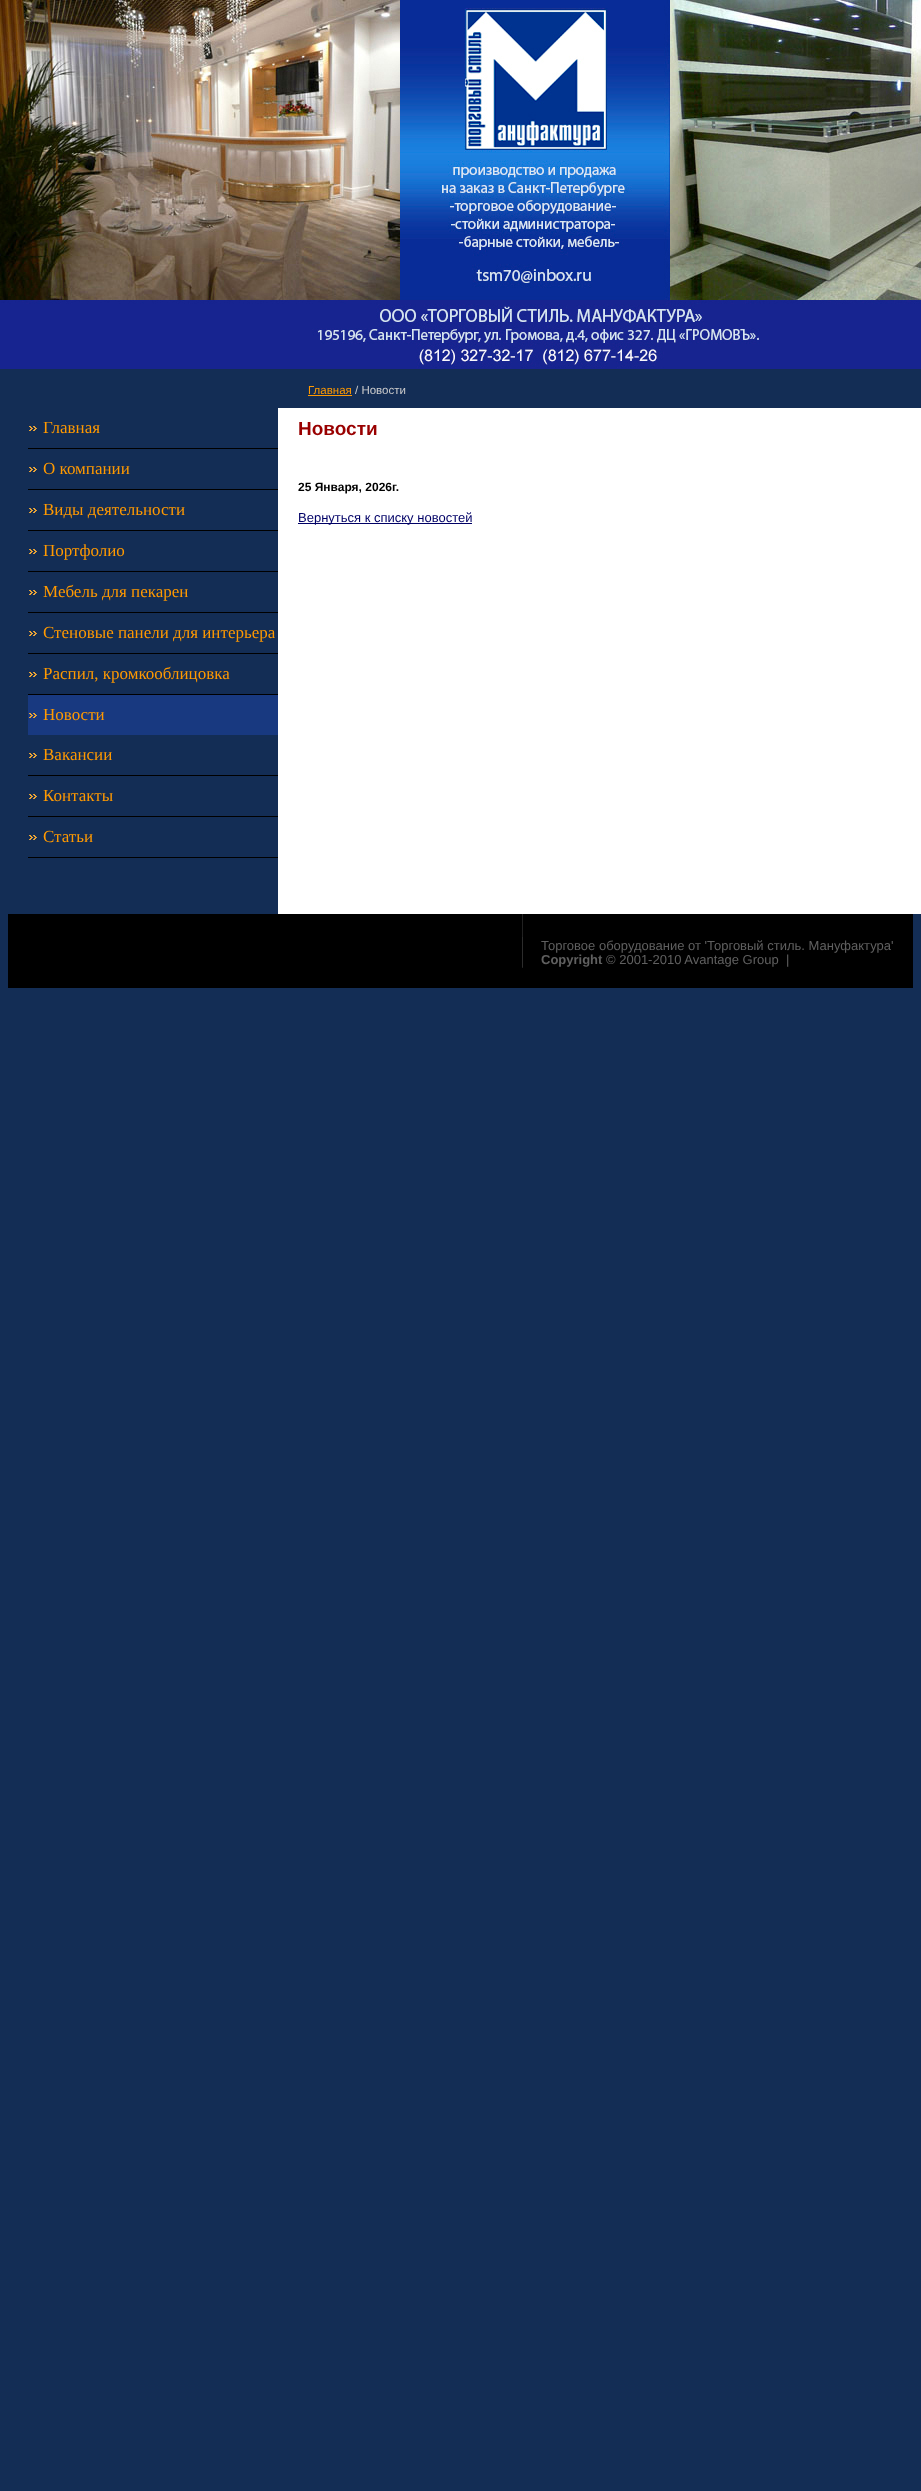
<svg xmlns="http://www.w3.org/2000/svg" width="921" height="2491">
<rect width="100%" height="100%" fill="#132d55"/>
<image x="0" y="0" width="921" height="369" href="media/1.png"/>
<text x="308" y="394" style="font-family:Liberation Sans;font-size:11.5px;fill:#f90">Главная</text>
<rect x="308" y="395" width="44" height="1" fill="#f90"/>
<text x="355" y="394" style="font-family:Liberation Sans;font-size:11.5px;fill:#ccc">/ Новости</text>
<image x="29" y="426" width="8" height="5" href="media/2.png"/>
<text x="43" y="433" style="font-family:Liberation Serif;font-size:17px;fill:#f90">Главная</text>
<rect x="28" y="448" width="250" height="1" fill="#000"/>
<image x="29" y="467" width="8" height="5" href="media/2.png"/>
<text x="43" y="474" style="font-family:Liberation Serif;font-size:17px;fill:#f90">О компании</text>
<rect x="28" y="489" width="250" height="1" fill="#000"/>
<image x="29" y="508" width="8" height="5" href="media/2.png"/>
<text x="43" y="515" style="font-family:Liberation Serif;font-size:17px;fill:#f90">Виды деятельности</text>
<rect x="28" y="530" width="250" height="1" fill="#000"/>
<image x="29" y="549" width="8" height="5" href="media/2.png"/>
<text x="43" y="556" style="font-family:Liberation Serif;font-size:17px;fill:#f90">Портфолио</text>
<rect x="28" y="571" width="250" height="1" fill="#000"/>
<image x="29" y="590" width="8" height="5" href="media/2.png"/>
<text x="43" y="597" style="font-family:Liberation Serif;font-size:17px;fill:#f90">Мебель для пекарен</text>
<rect x="28" y="612" width="250" height="1" fill="#000"/>
<image x="29" y="631" width="8" height="5" href="media/2.png"/>
<text x="43" y="638" style="font-family:Liberation Serif;font-size:17px;fill:#f90">Стеновые панели для интерьера</text>
<rect x="28" y="653" width="250" height="1" fill="#000"/>
<image x="29" y="672" width="8" height="5" href="media/2.png"/>
<text x="43" y="679" style="font-family:Liberation Serif;font-size:17px;fill:#f90">Распил, кромкооблицовка</text>
<rect x="28" y="694" width="250" height="1" fill="#000"/>
<rect x="28" y="695" width="250" height="40" fill="#183980"/>
<image x="29" y="713" width="8" height="5" href="media/3.png"/>
<text x="43" y="720" style="font-family:Liberation Serif;font-size:17px;fill:#f90">Новости</text>
<image x="29" y="753" width="8" height="5" href="media/2.png"/>
<text x="43" y="760" style="font-family:Liberation Serif;font-size:17px;fill:#f90">Вакансии</text>
<rect x="28" y="775" width="250" height="1" fill="#000"/>
<image x="29" y="794" width="8" height="5" href="media/2.png"/>
<text x="43" y="801" style="font-family:Liberation Serif;font-size:17px;fill:#f90">Контакты</text>
<rect x="28" y="816" width="250" height="1" fill="#000"/>
<image x="29" y="835" width="8" height="5" href="media/2.png"/>
<text x="43" y="842" style="font-family:Liberation Serif;font-size:17px;fill:#f90">Статьи</text>
<rect x="28" y="857" width="250" height="1" fill="#000"/>
<rect x="278" y="408" width="643" height="506" fill="#fff"/>
<text x="298" y="435" style="font-family:Liberation Sans;font-size:19px;font-weight:bold;fill:#900">Новости</text>
<text x="298" y="491" style="font-family:Liberation Sans;font-size:12px;font-weight:bold;fill:#000">25 Января, 2026г.</text>
<rect x="298" y="523" width="174" height="1" fill="#006"/>
<text x="298" y="522" style="font-family:Liberation Sans;font-size:13px;fill:#006">Вернуться к списку новостей</text>
<rect x="8" y="914" width="905" height="74" fill="#000"/>
<image x="522" y="914" width="1" height="54" href="media/4.png"/>
<text x="541" y="950" style="font-family:Liberation Sans;font-size:13px;fill:#606060">Торговое оборудование от 'Торговый стиль. Мануфактура'</text>
<text x="541" y="964" style="font-family:Liberation Sans;font-size:13px;font-weight:bold;fill:#606060">Copyright</text>
<text x="606" y="964" style="font-family:Liberation Sans;font-size:13px;fill:#606060" xml:space="preserve">© 2001-2010 Avantage Group  |</text>
</svg>
